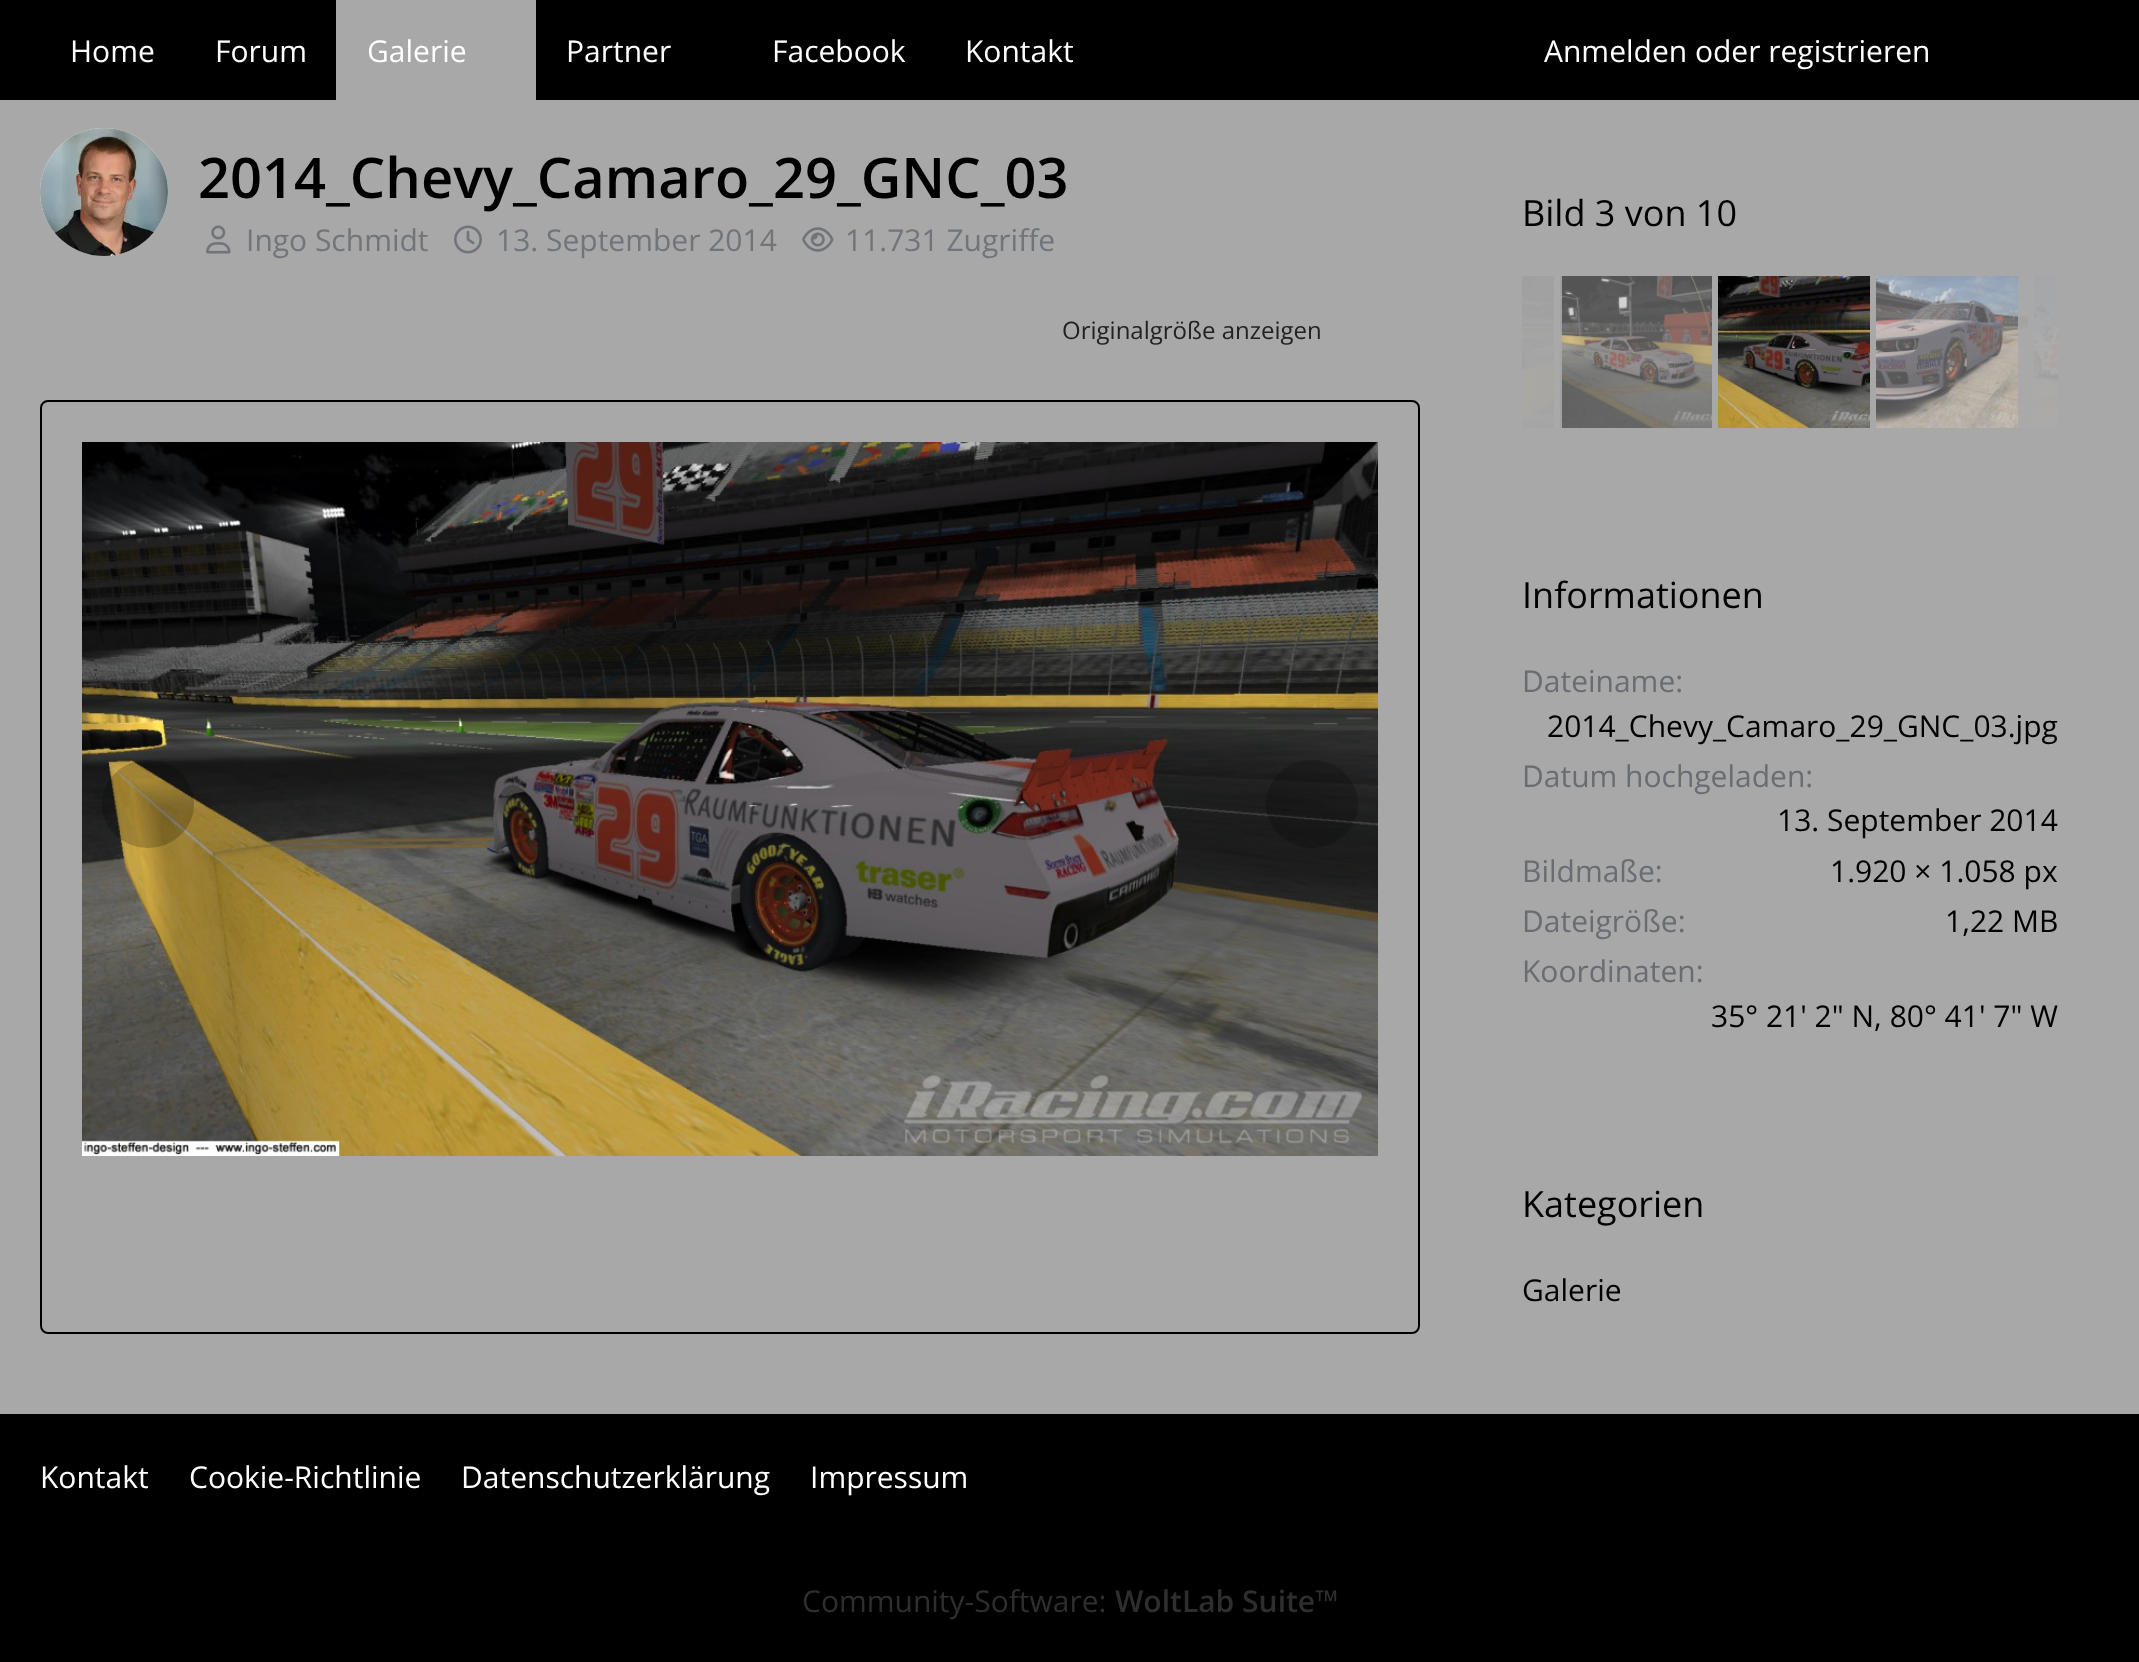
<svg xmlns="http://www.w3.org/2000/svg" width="2139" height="1662">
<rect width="100%" height="100%" fill="#a8a8a8"/>
<rect width="2139" height="100" fill="#000"/>
<text x="70" y="62" style="font-family:Open Sans;font-size:30px;fill:#fff">Home</text>
<text x="215" y="62" style="font-family:Open Sans;font-size:30px;fill:#fff">Forum</text>
<rect x="336" width="200" height="100" fill="#a8a8a8"/>
<text x="367" y="62" style="font-family:Open Sans;font-size:30px;fill:#fff">Galerie</text>
<text x="566" y="62" style="font-family:Open Sans;font-size:30px;fill:#fff">Partner</text>
<text x="772" y="62" style="font-family:Open Sans;font-size:30px;fill:#fff">Facebook</text>
<text x="965" y="62" style="font-family:Open Sans;font-size:30px;fill:#fff">Kontakt</text>
<text x="1544" y="62" style="font-family:Open Sans;font-size:30px;fill:#fff">Anmelden oder registrieren</text>
<circle cx="104" cy="192" r="64" fill="#fff"/>
<image x="40" y="128" width="128" height="128" href="media/1.png"/>
<text x="198" y="198" style="font-family:Open Sans;font-size:56px;font-weight:600;fill:#000">2014_Chevy_Camaro_29_GNC_03</text>
<image x="206" y="225" width="25" height="29" href="media/2.png"/>
<text x="246" y="251" style="font-family:Open Sans;font-size:30px;fill:#71757a">Ingo Schmidt</text>
<image x="454" y="225" width="28" height="29" href="media/3.png"/>
<text x="496" y="251" style="font-family:Open Sans;font-size:30px;fill:#71757a">13. September 2014</text>
<image x="802" y="227" width="32" height="25" href="media/4.png"/>
<text x="845" y="251" style="font-family:Open Sans;font-size:30px;fill:#71757a">11.731 Zugriffe</text>
<text x="1062" y="339" style="font-family:Open Sans;font-size:24px;fill:#212121">Originalgröße anzeigen</text>
<rect x="41" y="401" width="1378" height="932" rx="7" fill="none" stroke="#000" stroke-width="2"/>
<image x="82" y="442" width="1296" height="714" href="media/5.png"/>
<ellipse cx="148" cy="804" rx="46" ry="44" fill="#00000033"/>
<ellipse cx="1312" cy="804" rx="46" ry="44" fill="#00000033"/>
<text x="1522" y="226" style="font-family:Open Sans;font-size:36px;fill:#000">Bild 3 von 10</text>
<image x="1522" y="276" width="32" height="152" href="media/6.png"/>
<image x="1560" y="276" width="152" height="152" href="media/7.png"/>
<image x="1718" y="276" width="152" height="152" href="media/8.png"/>
<image x="1876" y="276" width="152" height="152" href="media/9.png"/>
<image x="2034" y="276" width="24" height="152" href="media/10.png"/>
<rect x="1522" y="276" width="40" height="152" fill="#a8a8a8e6"/>
<rect x="2018" y="276" width="40" height="152" fill="#a8a8a8e6"/>
<text x="1522" y="608" style="font-family:Open Sans;font-size:36px;fill:#000">Informationen</text>
<text x="1522" y="692" style="font-family:Open Sans;font-size:30px;fill:#696d72">Dateiname:</text>
<text x="1547" y="737" style="font-family:Open Sans;font-size:30px;fill:#000">2014_Chevy_Camaro_29_GNC_03.jpg</text>
<text x="1522" y="787" style="font-family:Open Sans;font-size:30px;fill:#696d72">Datum hochgeladen:</text>
<text x="1777" y="831" style="font-family:Open Sans;font-size:30px;fill:#000">13. September 2014</text>
<text x="1522" y="882" style="font-family:Open Sans;font-size:30px;fill:#696d72">Bildmaße:</text>
<text x="1830" y="882" style="font-family:Open Sans;font-size:30px;fill:#000">1.920 × 1.058 px</text>
<text x="1522" y="932" style="font-family:Open Sans;font-size:30px;fill:#696d72">Dateigröße:</text>
<text x="1945" y="932" style="font-family:Open Sans;font-size:30px;fill:#000">1,22 MB</text>
<text x="1522" y="982" style="font-family:Open Sans;font-size:30px;fill:#696d72">Koordinaten:</text>
<text x="1711" y="1027" style="font-family:Open Sans;font-size:30px;fill:#000">35° 21' 2" N, 80° 41' 7" W</text>
<text x="1522" y="1217" style="font-family:Open Sans;font-size:36px;fill:#000">Kategorien</text>
<text x="1522" y="1301" style="font-family:Open Sans;font-size:30px;fill:#000">Galerie</text>
<rect y="1414" width="2139" height="248" fill="#000"/>
<text x="40" y="1488" style="font-family:Open Sans;font-size:30px;fill:#fff">Kontakt</text>
<text x="189" y="1488" style="font-family:Open Sans;font-size:30px;fill:#fff">Cookie-Richtlinie</text>
<text x="461" y="1488" style="font-family:Open Sans;font-size:30px;fill:#fff">Datenschutzerklärung</text>
<text x="810" y="1488" style="font-family:Open Sans;font-size:30px;fill:#fff">Impressum</text>
<text x="802" y="1612" style="font-family:Open Sans;font-size:30px;fill:#2e2e2e">Community-Software:</text>
<text x="1115" y="1612" style="font-family:Open Sans;font-size:30px;font-weight:600;fill:#2e2e2e">WoltLab Suite™</text>
</svg>
